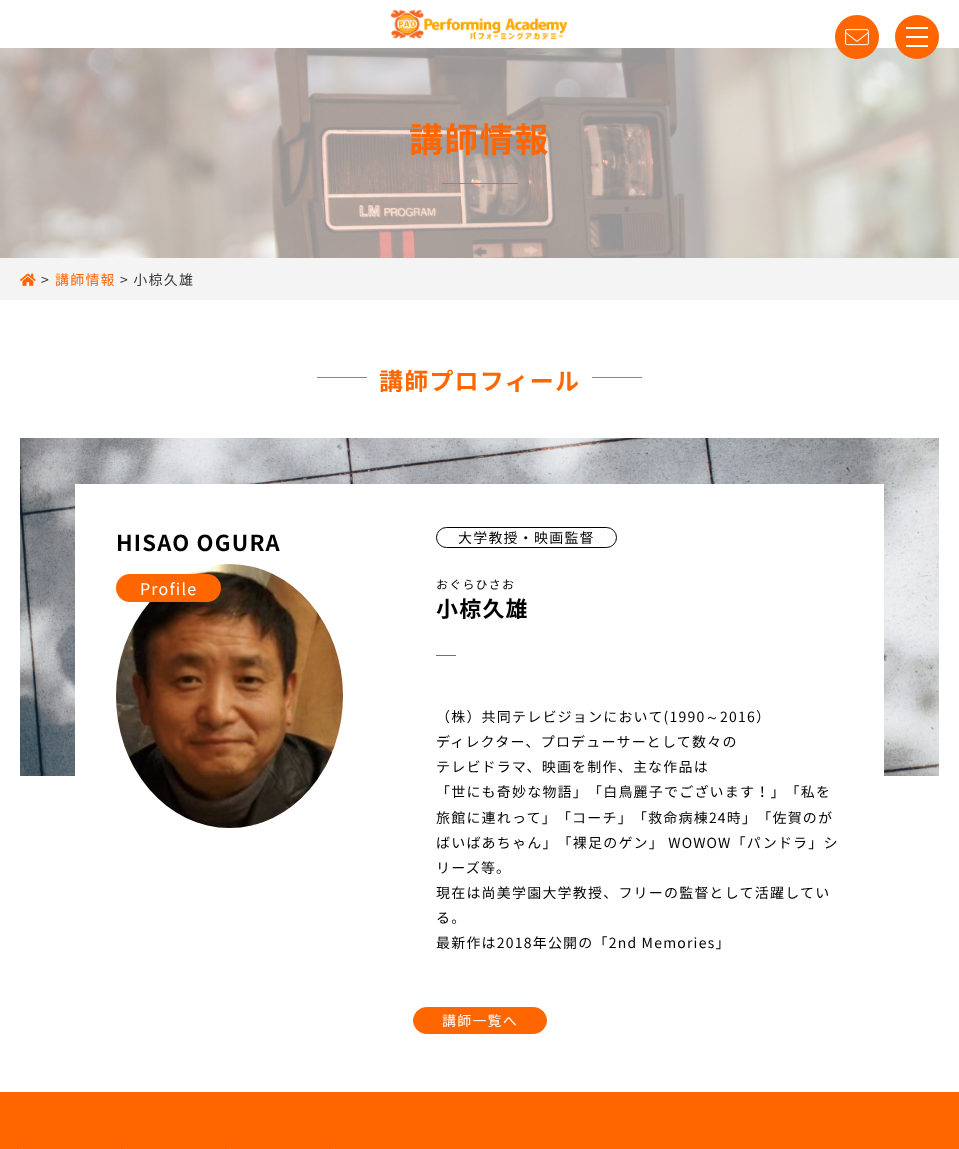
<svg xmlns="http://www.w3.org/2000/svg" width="959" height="1149">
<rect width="100%" height="100%" fill="#fff"/>
<image x="390" y="9" width="178" height="31" href="media/1.png"/>
<image x="0" y="48" width="959" height="210" href="media/3.png"/>
<image x="835" y="15" width="44" height="44" href="media/2.png"/>
<circle cx="917" cy="37" r="22" fill="#f60"/>
<rect x="906" y="27" width="22" height="2" fill="#fff"/>
<rect x="906" y="36" width="22" height="2" fill="#fff"/>
<rect x="906" y="45" width="22" height="2" fill="#fff"/>
<text x="409" y="152" style="font-family:Noto Sans JP;font-size:34px;font-weight:bold;letter-spacing:1.2px;fill:#f60">講師情報</text>
<rect x="442" y="183" width="76" height="1" fill="#f60"/>
<rect y="258" width="959" height="42" fill="#f4f4f5"/>
<image x="20" y="273" width="16" height="13" href="media/4.png"/>
<text x="41" y="285" style="font-family:Noto Sans JP;font-size:14px;letter-spacing:1.2px;fill:#343434">&gt;</text>
<text x="55" y="285" style="font-family:Noto Sans JP;font-size:14px;letter-spacing:1.2px;fill:#f60">講師情報</text>
<text x="120" y="285" style="font-family:Noto Sans JP;font-size:14px;letter-spacing:1.2px;fill:#343434">&gt; 小椋久雄</text>
<rect x="317" y="377" width="325" height="1" fill="#f60"/>
<rect x="367" y="377" width="225" height="1" fill="#fff"/>
<text x="379" y="390" style="font-family:Noto Sans JP;font-size:24px;font-weight:bold;letter-spacing:1.2px;fill:#f60">講師プロフィール</text>
<image x="20" y="438" width="919" height="338" href="media/5.png"/>
<rect x="75" y="484" width="809" height="292" fill="#fff"/>
<text x="116" y="551" style="font-family:Noto Sans JP;font-size:22px;font-weight:bold;letter-spacing:1.2px;fill:#000">HISAO OGURA</text>
<image x="116" y="564" width="227" height="264" href="media/6.png"/>
<rect x="116" y="574" width="105" height="28" rx="14" fill="#f60"/>
<text x="140" y="595" style="font-family:Noto Sans JP;font-size:16px;letter-spacing:1.2px;fill:#fff">Profile</text>
<rect x="436.5" y="527.5" width="180" height="20" rx="10" fill="none" stroke="#000"/>
<text x="458" y="543" style="font-family:Noto Sans JP;font-size:14px;letter-spacing:1.2px;fill:#000">大学教授・映画監督</text>
<text x="436" y="589" style="font-family:Noto Sans JP;font-size:12px;letter-spacing:1.2px;fill:#000">おぐらひさお</text>
<text x="436" y="617" style="font-family:Noto Sans JP;font-size:22px;font-weight:bold;letter-spacing:1.2px;fill:#000">小椋久雄</text>
<rect x="436" y="655" width="20" height="1" fill="#707070"/>
<text x="436" y="722" style="font-family:Noto Sans JP;font-size:14px;letter-spacing:1.2px;fill:#000">（株）共同テレビジョンにおいて(1990</text>
<text x="705" y="722" style="font-family:WenQuanYi Zen Hei;font-size:14px;font-weight:500;letter-spacing:1.2px;fill:#000">～</text>
<text x="720" y="722" style="font-family:Noto Sans JP;font-size:14px;letter-spacing:1.2px;fill:#000">2016）</text>
<text x="436" y="747" style="font-family:Noto Sans JP;font-size:14px;letter-spacing:1.2px;fill:#000">ディレクター、プロデューサーとして数々の</text>
<text x="436" y="772" style="font-family:Noto Sans JP;font-size:14px;letter-spacing:1.2px;fill:#000">テレビドラマ、映画を制作、主な作品は</text>
<text x="436" y="797" style="font-family:Noto Sans JP;font-size:14px;letter-spacing:1.2px;fill:#000">「世にも奇妙な物語」「白鳥麗子でございます！」「私を</text>
<text x="436" y="823" style="font-family:Noto Sans JP;font-size:14px;letter-spacing:1.2px;fill:#000">旅館に連れって」「コーチ」「救命病棟24時」「佐賀のが</text>
<text x="436" y="848" style="font-family:Noto Sans JP;font-size:14px;letter-spacing:1.2px;fill:#000">ばいばあちゃん」「裸足のゲン」 WOWOW「パンドラ」シ</text>
<text x="436" y="873" style="font-family:Noto Sans JP;font-size:14px;letter-spacing:1.2px;fill:#000">リーズ等。</text>
<text x="436" y="898" style="font-family:Noto Sans JP;font-size:14px;letter-spacing:1.2px;fill:#000">現在は尚美学園大学教授、フリーの監督として活躍してい</text>
<text x="436" y="923" style="font-family:Noto Sans JP;font-size:14px;letter-spacing:1.2px;fill:#000">る。</text>
<text x="436" y="948" style="font-family:Noto Sans JP;font-size:14px;letter-spacing:1.2px;fill:#000">最新作は2018年公開の「2nd Memories」</text>
<rect x="413.5" y="1007.5" width="133" height="26" rx="13" fill="#f60" stroke="#f60"/>
<text x="442" y="1026" style="font-family:Noto Sans JP;font-size:14px;letter-spacing:1.2px;fill:#fff">講師一覧へ</text>
<rect y="1092" width="959" height="57" fill="#f60"/>
<image x="21" y="1148" width="2" height="1" href="media/7.png"/>
<image x="125" y="1148" width="2" height="1" href="media/7.png"/>
<image x="229" y="1148" width="2" height="1" href="media/7.png"/>
<image x="333" y="1148" width="2" height="1" href="media/7.png"/>
</svg>
